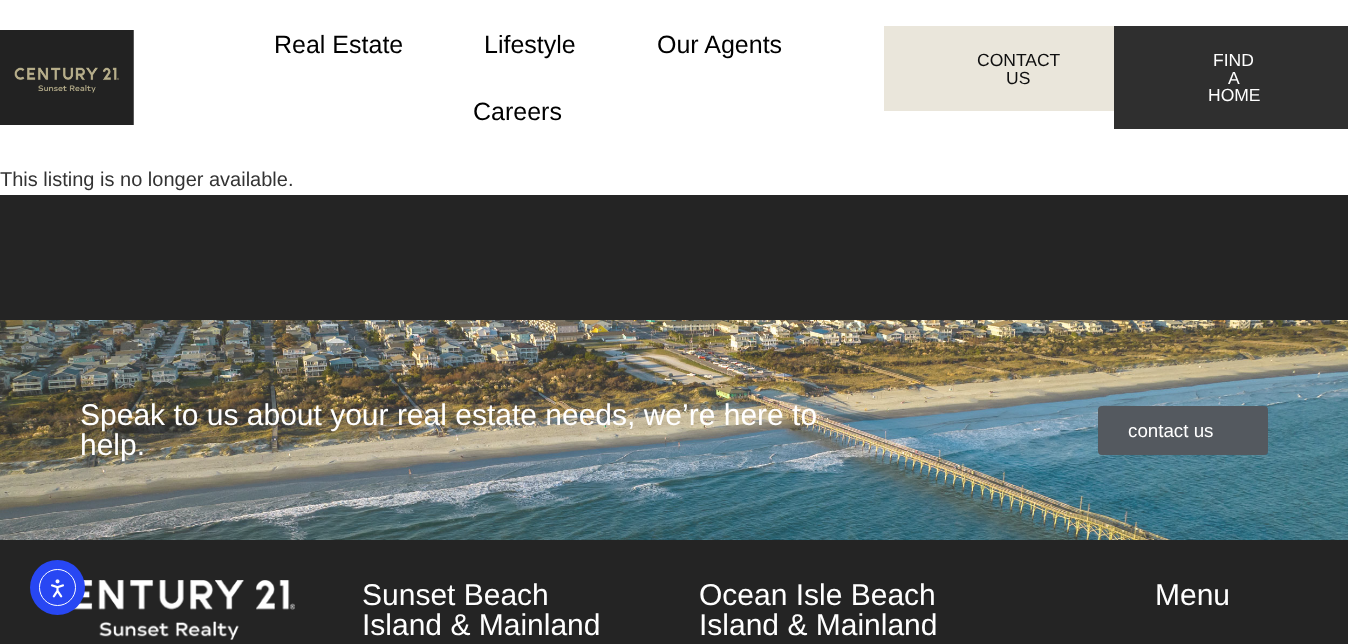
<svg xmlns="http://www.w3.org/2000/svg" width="1348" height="644">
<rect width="100%" height="100%" fill="#fff"/>
<image x="0" y="30" width="134" height="95" href="media/1.png"/>
<text x="274" y="53" style="font-family:Liberation Sans;font-size:25px;fill:#000">Real Estate</text>
<text x="484" y="53" style="font-family:Liberation Sans;font-size:25px;fill:#000">Lifestyle</text>
<text x="657" y="53" style="font-family:Liberation Sans;font-size:25px;fill:#000">Our Agents</text>
<text x="473" y="120" style="font-family:Liberation Sans;font-size:25px;fill:#000">Careers</text>
<rect x="884" y="26" width="230" height="85" fill="#eae6db"/>
<text x="977" y="66" style="font-family:Liberation Sans;font-size:17.5px;fill:#0f0f0f">CONTACT</text>
<text x="1006" y="84" style="font-family:Liberation Sans;font-size:17.5px;fill:#0f0f0f">US</text>
<rect x="1114" y="26" width="234" height="103" fill="#2f2f2f"/>
<text x="1213" y="66" style="font-family:Liberation Sans;font-size:17.5px;fill:#fff">FIND</text>
<text x="1228" y="84" style="font-family:Liberation Sans;font-size:17.5px;fill:#fff">A</text>
<text x="1208" y="101" style="font-family:Liberation Sans;font-size:17.5px;fill:#fff">HOME</text>
<text x="0" y="186" style="font-family:Liberation Sans;font-size:20px;fill:#333">This listing is no longer available.</text>
<rect y="195" width="1348" height="449" fill="#242424"/>
<image x="73" y="580" width="222" height="60" href="media/4.png"/>
<circle cx="57.5" cy="587.5" r="27.5" fill="#2847f3"/>
<circle cx="57.5" cy="587.5" r="18" fill="none" stroke="#fff"/>
<image x="50" y="579" width="14" height="19" href="media/2.png"/>
<image x="0" y="320" width="1348" height="220" href="media/3.png"/>
<text x="80" y="425" style="font-family:Liberation Sans;font-size:30px;fill:#fff">Speak to us about your real estate needs, we’re here to</text>
<text x="80" y="455" style="font-family:Liberation Sans;font-size:30px;fill:#fff">help.</text>
<rect x="1098" y="406" width="170" height="49" rx="4" fill="#54595f"/>
<text x="1128" y="437" style="font-family:Liberation Sans;font-size:18.75px;fill:#fff">contact us</text>
<text x="362" y="605" style="font-family:Liberation Sans;font-size:30px;fill:#fff">Sunset Beach</text>
<text x="362" y="635" style="font-family:Liberation Sans;font-size:30px;fill:#fff">Island &amp; Mainland</text>
<text x="699" y="605" style="font-family:Liberation Sans;font-size:30px;fill:#fff">Ocean Isle Beach</text>
<text x="699" y="635" style="font-family:Liberation Sans;font-size:30px;fill:#fff">Island &amp; Mainland</text>
<text x="1155" y="605" style="font-family:Liberation Sans;font-size:30px;fill:#fff">Menu</text>
</svg>
